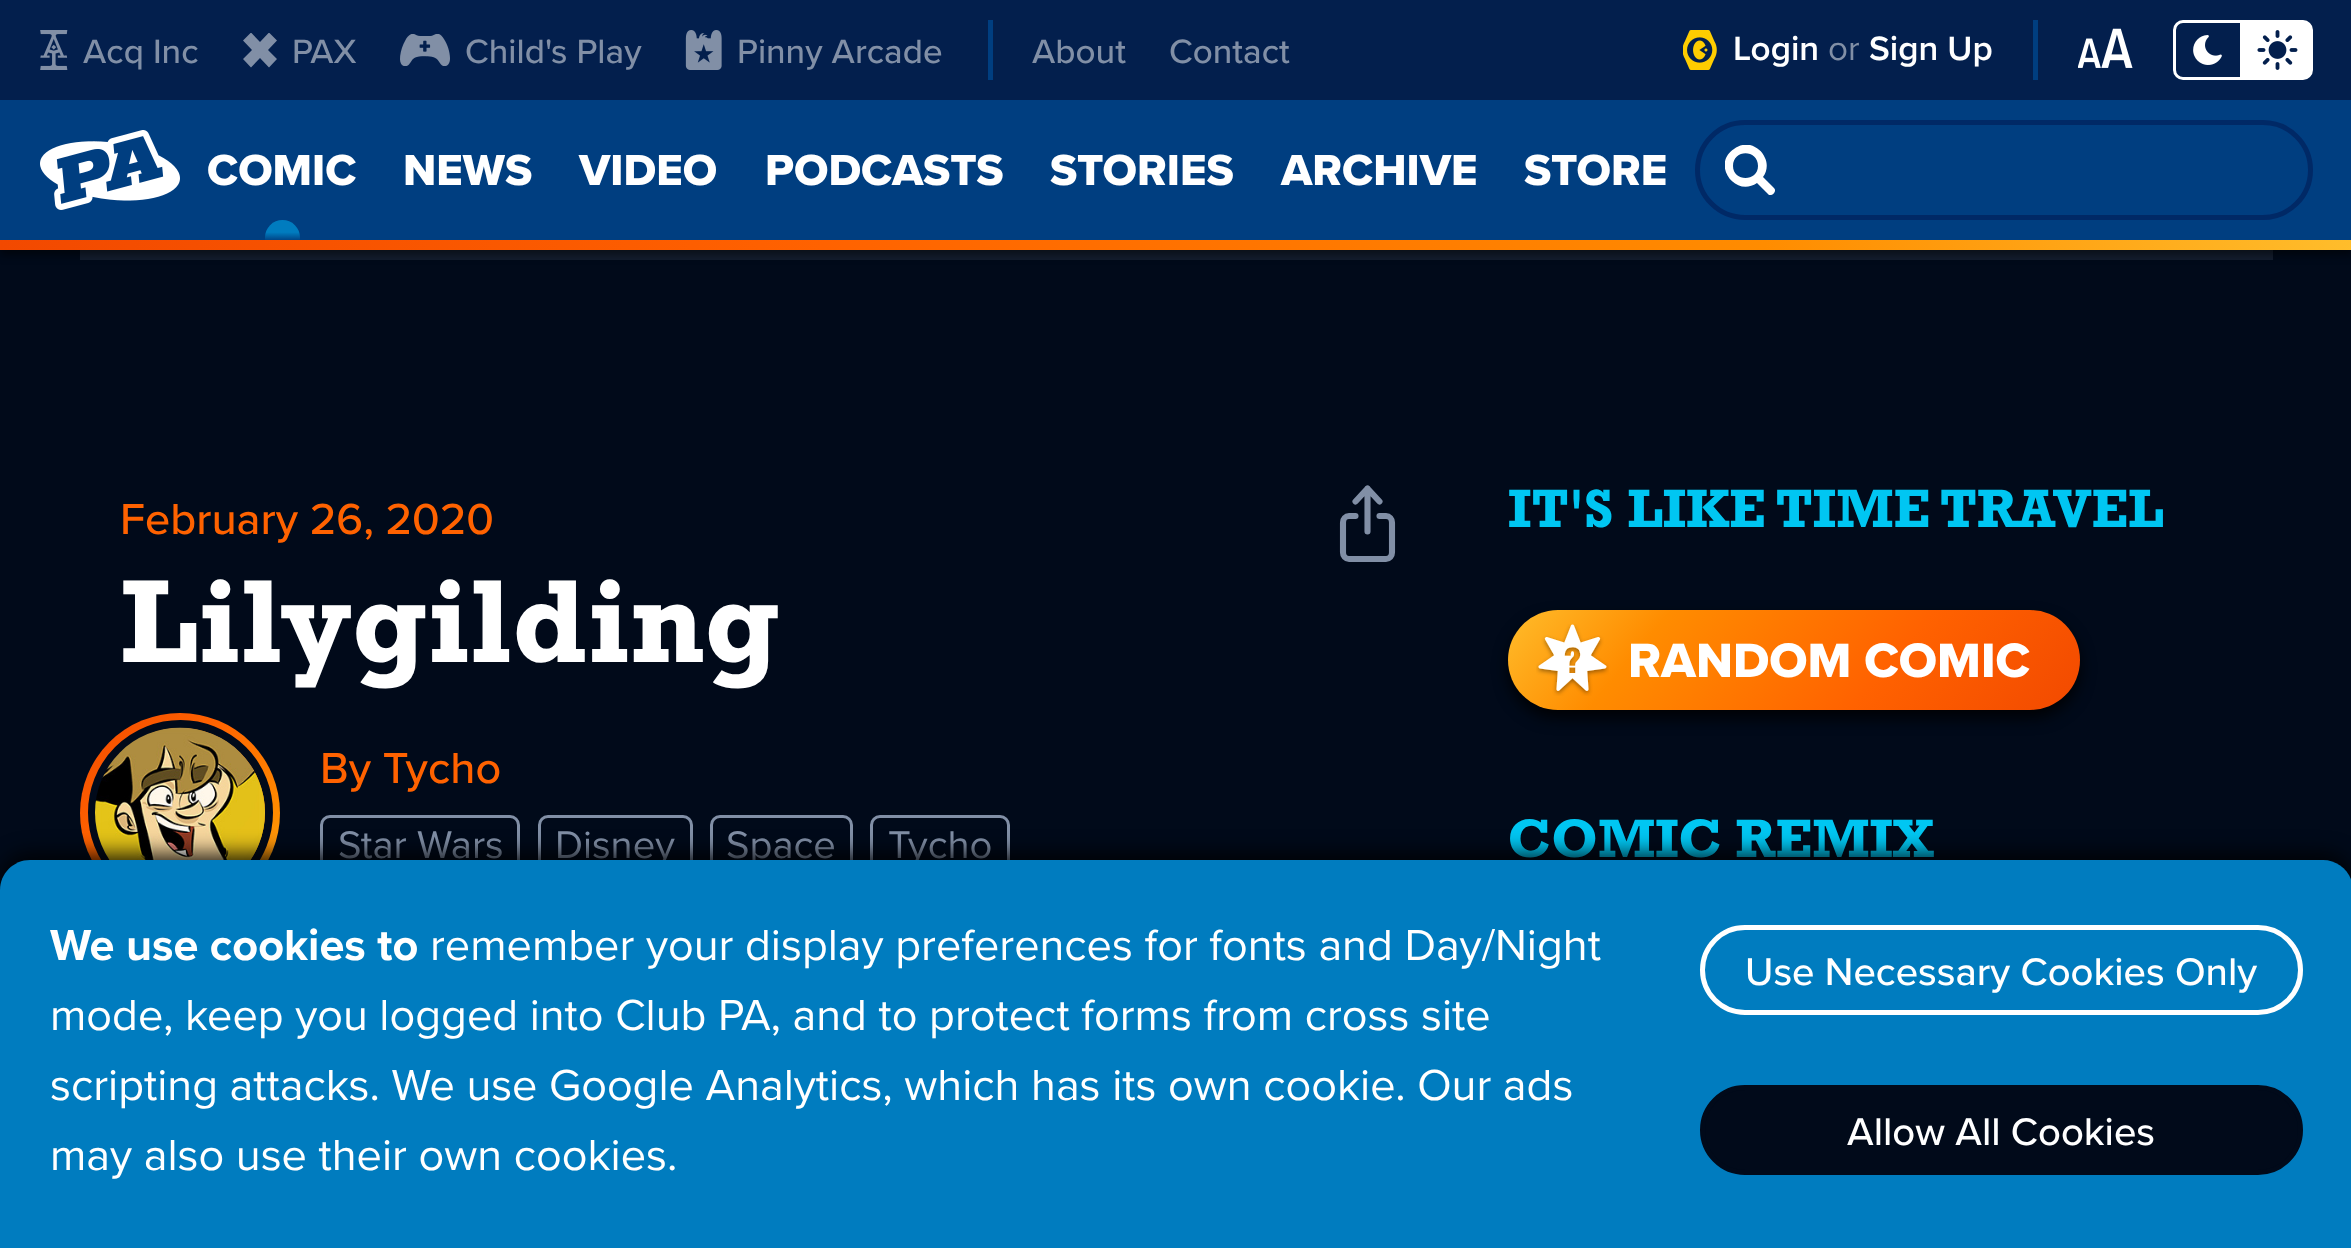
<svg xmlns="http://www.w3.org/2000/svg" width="2351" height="1248">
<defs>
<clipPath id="clip1"><rect x="243" y="33" width="35" height="35"/></clipPath>
<clipPath id="clip2"><rect y="100" width="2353" height="140"/></clipPath>
<linearGradient id="g1" gradientUnits="userSpaceOnUse" x1="283" y1="255" x2="283" y2="220"><stop offset="0.4" stop-color="#003e80"/><stop offset="0.65" stop-color="#007cbf"/></linearGradient>
<clipPath id="clip3"><rect x="1725" y="145" width="50" height="50"/></clipPath>
<linearGradient id="g2" gradientUnits="userSpaceOnUse" x1="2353" y1="245" x2="0" y2="245"><stop offset="0" stop-color="#ffbd2b"/><stop offset="0.25" stop-color="#ff8c00"/><stop offset="0.65" stop-color="#ff6200"/><stop offset="1" stop-color="#f24900"/></linearGradient>
<linearGradient id="g3" gradientUnits="userSpaceOnUse" x1="280" y1="913" x2="80" y2="713"><stop offset="0" stop-color="#ffbd2b"/><stop offset="0.25" stop-color="#ff8c00"/><stop offset="0.65" stop-color="#ff6200"/><stop offset="1" stop-color="#f24900"/></linearGradient>
<linearGradient id="g4" gradientUnits="userSpaceOnUse" x1="1601" y1="498" x2="1986" y2="822"><stop offset="0" stop-color="#ffbd2b"/><stop offset="0.25" stop-color="#ff8c00"/><stop offset="0.65" stop-color="#ff6200"/><stop offset="1" stop-color="#f24900"/></linearGradient>
</defs>
<rect width="100%" height="100%" fill="#010a1a"/>
<rect x="80" y="250" width="2193" height="10" fill="#141e2f"/>
<rect y="5" width="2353" height="250" fill="#00000080" filter="blur(4px)"/>
<rect y="100" width="2351" height="140" fill="#003e80"/>
<rect width="2351" height="100" fill="#031f4d"/>
<image x="40" y="30" width="28" height="40" href="media/1.png"/>
<text x="83" y="63" style="font-family:Proxima Nova;font-size:35px;font-weight:500;fill:#818fa6">Acq Inc</text>
<g clip-path="url(#clip1)">
<path d="M277 40.5l-8-8l-9 9.5l-9-9.5l-8 8l9 9.5l-9 9l8 8.5l9-9.5l9 9.5l8-8.5l-9-9z" fill="#818fa6" fill-rule="evenodd"/>
</g>
<text x="292" y="63" style="font-family:Proxima Nova;font-size:35px;font-weight:500;fill:#818fa6">PAX</text>
<image x="400" y="34" width="50" height="32" href="media/2.png"/>
<text x="465" y="63" style="font-family:Proxima Nova;font-size:35px;font-weight:500;fill:#818fa6">Child's Play</text>
<image x="685" y="30" width="37" height="40" href="media/3.png"/>
<text x="737" y="63" style="font-family:Proxima Nova;font-size:35px;font-weight:500;fill:#818fa6">Pinny Arcade</text>
<rect x="988" y="20" width="5" height="60" fill="#003e80"/>
<text x="1032" y="63" style="font-family:Proxima Nova;font-size:35px;font-weight:500;fill:#818fa6">About</text>
<text x="1169" y="63" style="font-family:Proxima Nova;font-size:35px;font-weight:500;fill:#818fa6">Contact</text>
<rect x="2033" y="20" width="5" height="60" fill="#003e80"/>
<image x="1683" y="30" width="34" height="40" href="media/4.png"/>
<text x="1733" y="60" style="font-family:Proxima Nova;font-size:35px;font-weight:600;fill:#fff">Login</text>
<text x="1828" y="60" style="font-family:Proxima Nova;font-size:35px;fill:#818fa6">or</text>
<text x="1869" y="60" style="font-family:Proxima Nova;font-size:35px;font-weight:600;fill:#fff">Sign Up</text>
<image x="2078" y="28" width="55" height="40" href="media/5.png"/>
<path d="M2183 21.5h58.5v57h-58.5c-4.5 0-8.5-4-8.5-8.5v-40c0-4.5 4-8.5 8.5-8.5z" fill="none" stroke="#fff" stroke-width="3"/>
<image x="2193" y="35" width="29" height="30" href="media/6.png"/>
<path d="M2244.5 21.5h58.5c4.5 0 8.5 4 8.5 8.5v40c0 4.5-4 8.5-8.5 8.5h-58.5z" fill="#fff" stroke="#fff" stroke-width="3"/>
<image x="2257" y="30" width="41" height="40" href="media/7.png"/>
<image x="40" y="130" width="140" height="80" href="media/8.png"/>
<text x="207" y="185" style="font-family:Proxima Nova;font-size:45px;font-weight:800;fill:#fff">COMIC</text>
<g clip-path="url(#clip2)">
<circle cx="282.5" cy="237.5" r="17.5" fill="url(#g1)"/>
</g>
<text x="403" y="185" style="font-family:Proxima Nova;font-size:45px;font-weight:800;fill:#fff">NEWS</text>
<text x="579" y="185" style="font-family:Proxima Nova;font-size:45px;font-weight:800;fill:#fff">VIDEO</text>
<text x="765" y="185" style="font-family:Proxima Nova;font-size:45px;font-weight:800;fill:#fff">PODCASTS</text>
<text x="1050" y="185" style="font-family:Proxima Nova;font-size:45px;font-weight:800;fill:#fff">STORIES</text>
<text x="1281" y="185" style="font-family:Proxima Nova;font-size:45px;font-weight:800;fill:#fff">ARCHIVE</text>
<text x="1524" y="185" style="font-family:Proxima Nova;font-size:45px;font-weight:800;fill:#fff">STORE</text>
<rect x="1697.5" y="122.5" width="613" height="95" rx="47.5" fill="none" stroke="#002966" stroke-width="5"/>
<g clip-path="url(#clip3)">
<path d="M1774 188l-11-11c4-5 5-13 2-19c-3-7-8-11-15-13c-5-1-11 0-16 4c-23 15 1 49 23 34l12 12c4 1 8-4 5-7zm-41-22c0-17 25-17 25 0c0 16-25 16-25 0z" fill="#fff"/>
</g>
<rect y="240" width="2351" height="10" fill="url(#g2)"/>
<text x="120" y="534" style="font-family:Proxima Nova;font-size:45px;font-weight:500;fill:#ff6200">February 26, 2020</text>
<path d="M1379.5 516h6.5c3.5 0 6 3 6 6.5v30c0 3.5-2.5 6.5-6 6.5h-37c-3.5 0-6-3-6-6.5v-30c0-3.5 2.5-6.5 6-6.5h6.5" fill="none" stroke="#818fa6" stroke-width="6.1" stroke-linecap="round" stroke-linejoin="round"/>
<path d="M1379.5 501.5l-12-13l-12 13m12 30v-43" fill="none" stroke="#818fa6" stroke-width="6.1" stroke-linecap="round" stroke-linejoin="round"/>
<text x="120" y="662" style="font-family:Rockwell;font-size:120px;font-weight:bold;fill:#fff">Lilygilding</text>
<circle cx="180" cy="813" r="100" fill="url(#g3)"/>
<circle cx="180.5" cy="812.5" r="88.5" fill="none" stroke="#010a1a" stroke-width="8"/>
<image x="95" y="727" width="170" height="133" href="media/9.png"/>
<text x="320" y="783" style="font-family:Proxima Nova;font-size:45px;font-weight:500;fill:#ff6200">By Tycho</text>
<rect x="321.5" y="816.5" width="197" height="57" rx="8.5" fill="none" stroke="#818fa6" stroke-width="3"/>
<text x="338" y="858" style="font-family:Proxima Nova;font-size:40px;fill:#818fa6">Star Wars</text>
<rect x="539.5" y="816.5" width="152" height="57" rx="8.5" fill="none" stroke="#818fa6" stroke-width="3"/>
<text x="555" y="858" style="font-family:Proxima Nova;font-size:40px;fill:#818fa6">Disney</text>
<rect x="711.5" y="816.5" width="140" height="57" rx="8.5" fill="none" stroke="#818fa6" stroke-width="3"/>
<text x="726" y="858" style="font-family:Proxima Nova;font-size:40px;fill:#818fa6">Space</text>
<rect x="871.5" y="816.5" width="137" height="57" rx="8.5" fill="none" stroke="#818fa6" stroke-width="3"/>
<text x="888" y="858" style="font-family:Proxima Nova;font-size:40px;fill:#818fa6">Tycho</text>
<text x="1508" y="527" style="font-family:Rockwell;font-size:55px;font-weight:bold;fill:#00c6f2">IT'S LIKE TIME TRAVEL</text>
<rect x="1508" y="618" width="572" height="100" rx="50" fill="#000000d9" filter="blur(7.5px)"/>
<rect x="1508" y="610" width="572" height="100" rx="50" fill="url(#g4)"/>
<image x="1536" y="624" width="73" height="72" href="media/10.png"/>
<text x="1628" y="677" style="font-family:Proxima Nova;font-size:50px;font-weight:800;fill:#fff">RANDOM COMIC</text>
<text x="1508" y="857" style="font-family:Rockwell;font-size:55px;font-weight:bold;fill:#00c6f2">COMIC REMIX</text>
<rect y="853" width="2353" height="390" rx="30" fill="#000000cc" filter="blur(10px)"/>
<path d="M30 860h2293c16.5 0 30 13.5 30 30v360h-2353v-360c0-16.5 13.5-30 30-30z" fill="#007cbf"/>
<text x="50" y="960" style="font-family:Proxima Nova;font-size:45px;font-weight:bold;fill:#fff">We use cookies to</text>
<text x="430" y="960" style="font-family:Proxima Nova;font-size:45px;fill:#fff">remember your display preferences for fonts and Day/Night</text>
<text x="50" y="1030" style="font-family:Proxima Nova;font-size:45px;fill:#fff">mode, keep you logged into Club PA, and to protect forms from cross site</text>
<text x="50" y="1100" style="font-family:Proxima Nova;font-size:45px;fill:#fff">scripting attacks. We use Google Analytics, which has its own cookie. Our ads</text>
<text x="50" y="1170" style="font-family:Proxima Nova;font-size:45px;fill:#fff">may also use their own cookies.</text>
<rect x="1702.5" y="927.5" width="598" height="85" rx="42.5" fill="none" stroke="#fff" stroke-width="5"/>
<text x="1745" y="985" style="font-family:Proxima Nova;font-size:40px;font-weight:500;fill:#fff">Use Necessary Cookies Only</text>
<rect x="1702.5" y="1087.5" width="598" height="85" rx="42.5" fill="#010a1a" stroke="#010a1a" stroke-width="5"/>
<text x="1847" y="1145" style="font-family:Proxima Nova;font-size:40px;font-weight:500;fill:#fff">Allow All Cookies</text>
</svg>
